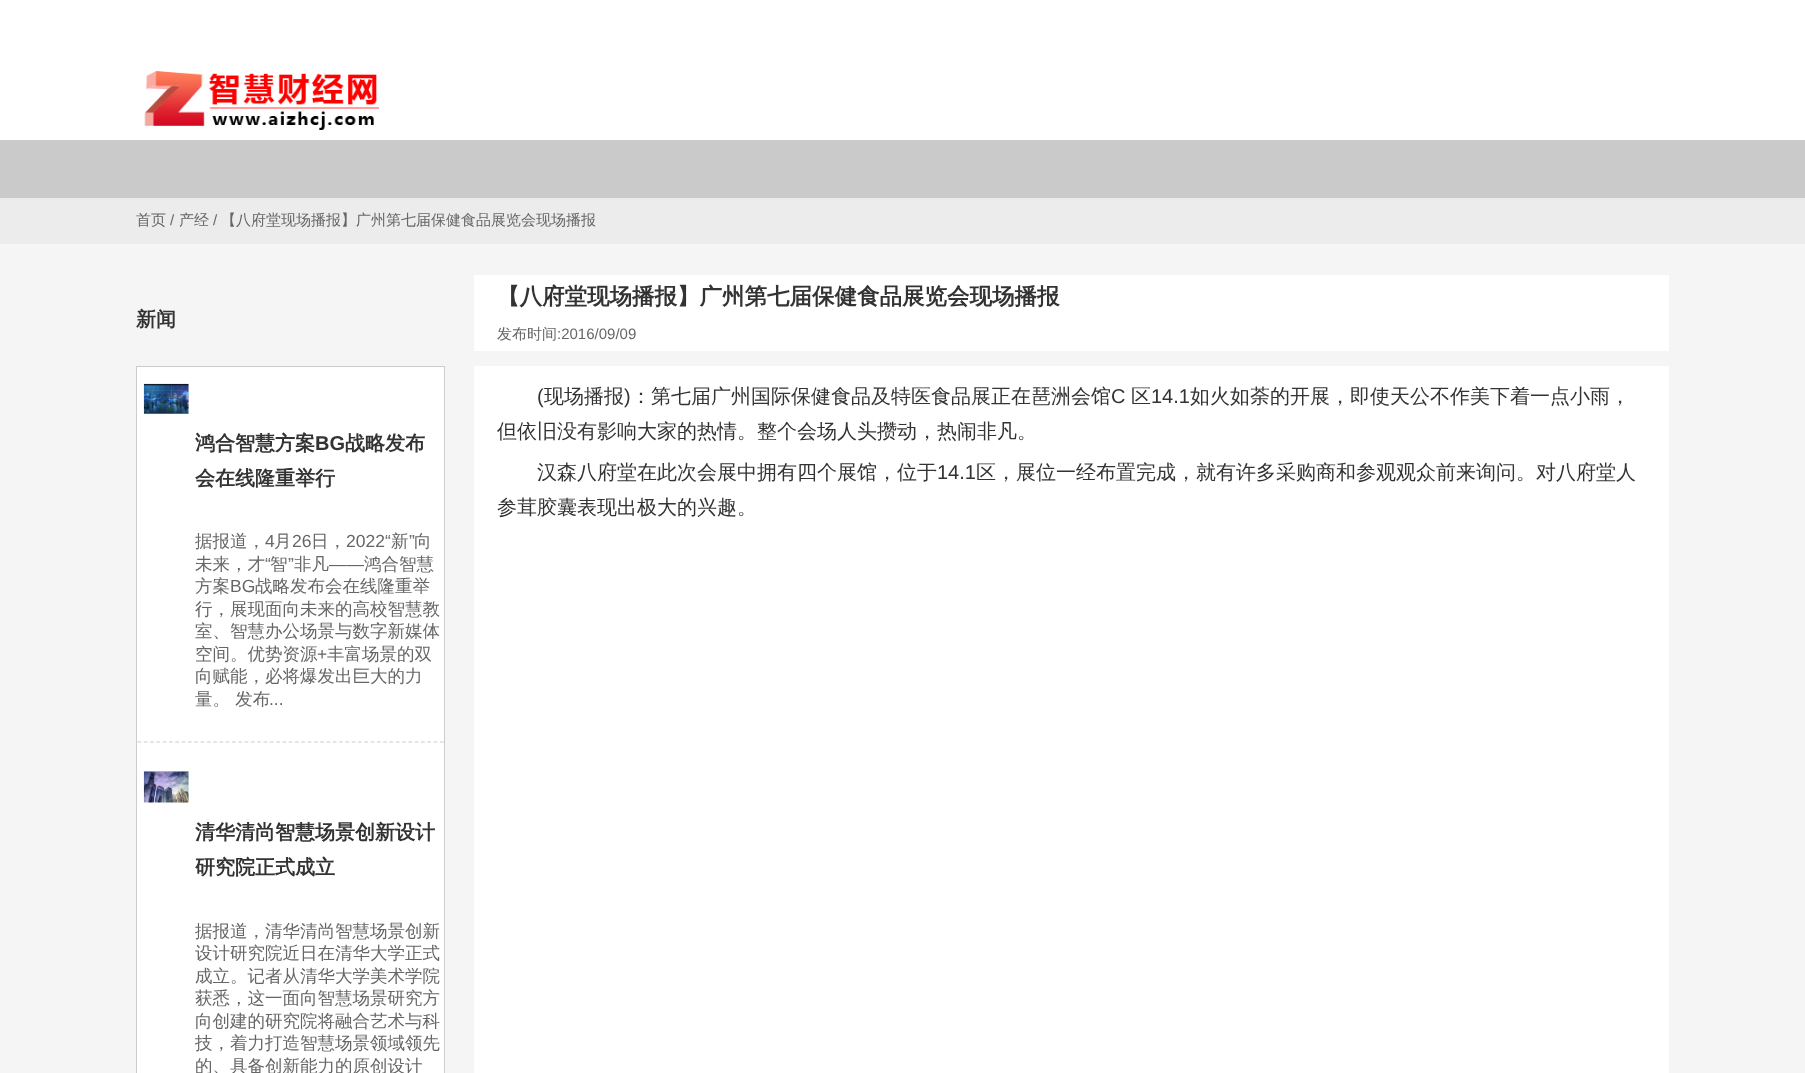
<svg xmlns="http://www.w3.org/2000/svg" width="1805" height="1073">
<rect width="100%" height="100%" fill="#f5f5f5"/>
<rect width="1805" height="140" fill="#fff"/>
<image x="144" y="71" width="236" height="59" href="media/1.png"/>
<rect y="140" width="1805" height="58" fill="#cacaca"/>
<rect y="198" width="1805" height="46" fill="#ececec"/>
<text x="136" y="225" style="font-family:WenQuanYi Zen Hei;font-size:15px;font-weight:500;fill:#666">首页</text>
<text x="170" y="225" style="font-family:Liberation Sans;font-size:15px;fill:#666">/</text>
<text x="179" y="225" style="font-family:WenQuanYi Zen Hei;font-size:15px;font-weight:500;fill:#666">产经</text>
<text x="213" y="225" style="font-family:Liberation Sans;font-size:15px;fill:#666">/</text>
<text x="221" y="225" style="font-family:WenQuanYi Zen Hei;font-size:15px;font-weight:500;fill:#666">【八府堂现场播报】广州第七届保健食品展览会现场播报</text>
<text x="136" y="326" style="font-family:WenQuanYi Zen Hei;font-size:20px;font-weight:bold;fill:#333">新闻</text>
<rect x="136.5" y="366.5" width="308" height="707" fill="#fff" stroke="#ccc"/>
<path d="M137.5 742h306.5" fill="none" stroke="#ccc" stroke-width="1.2" stroke-dasharray="3.75 2.55"/>
<image x="143" y="383" width="46" height="31" href="media/2.png"/>
<text x="195" y="450" style="font-family:WenQuanYi Zen Hei;font-size:20px;font-weight:bold;fill:#333">鸿合智慧方案</text>
<text x="315" y="450" style="font-family:Liberation Sans;font-size:20px;font-weight:bold;fill:#333">BG</text>
<text x="345" y="450" style="font-family:WenQuanYi Zen Hei;font-size:20px;font-weight:bold;fill:#333">战略发布</text>
<text x="195" y="485" style="font-family:WenQuanYi Zen Hei;font-size:20px;font-weight:bold;fill:#333">会在线隆重举行</text>
<text x="195" y="547" style="font-family:WenQuanYi Zen Hei;font-size:17.5px;font-weight:500;fill:#666">据报道，</text>
<text x="265" y="547" style="font-family:Liberation Sans;font-size:17.5px;fill:#666">4</text>
<text x="274" y="547" style="font-family:WenQuanYi Zen Hei;font-size:17.5px;font-weight:500;fill:#666">月</text>
<text x="292" y="547" style="font-family:Liberation Sans;font-size:17.5px;fill:#666">26</text>
<text x="311" y="547" style="font-family:WenQuanYi Zen Hei;font-size:17.5px;font-weight:500;fill:#666">日，</text>
<text x="346" y="547" style="font-family:Liberation Sans;font-size:17.5px;fill:#666">2022“</text>
<text x="391" y="547" style="font-family:WenQuanYi Zen Hei;font-size:17.5px;font-weight:500;fill:#666">新</text>
<text x="409" y="547" style="font-family:Liberation Sans;font-size:17.5px;fill:#666">”</text>
<text x="414" y="547" style="font-family:WenQuanYi Zen Hei;font-size:17.5px;font-weight:500;fill:#666">向</text>
<text x="195" y="570" style="font-family:WenQuanYi Zen Hei;font-size:17.5px;font-weight:500;fill:#666">未来，才</text>
<text x="265" y="570" style="font-family:Liberation Sans;font-size:17.5px;fill:#666">“</text>
<text x="270" y="570" style="font-family:WenQuanYi Zen Hei;font-size:17.5px;font-weight:500;fill:#666">智</text>
<text x="288" y="570" style="font-family:Liberation Sans;font-size:17.5px;fill:#666">”</text>
<text x="294" y="570" style="font-family:WenQuanYi Zen Hei;font-size:17.5px;font-weight:500;fill:#666">非凡</text>
<text x="329" y="570" style="font-family:Liberation Sans;font-size:17.5px;fill:#666">——</text>
<text x="364" y="570" style="font-family:WenQuanYi Zen Hei;font-size:17.5px;font-weight:500;fill:#666">鸿合智慧</text>
<text x="195" y="592" style="font-family:WenQuanYi Zen Hei;font-size:17.5px;font-weight:500;fill:#666">方案</text>
<text x="230" y="592" style="font-family:Liberation Sans;font-size:17.5px;fill:#666">BG</text>
<text x="255" y="592" style="font-family:WenQuanYi Zen Hei;font-size:17.5px;font-weight:500;fill:#666">战略发布会在线隆重举</text>
<text x="195" y="615" style="font-family:WenQuanYi Zen Hei;font-size:17.5px;font-weight:500;fill:#666">行，展现面向未来的高校智慧教</text>
<text x="195" y="637" style="font-family:WenQuanYi Zen Hei;font-size:17.5px;font-weight:500;fill:#666">室、智慧办公场景与数字新媒体</text>
<text x="195" y="660" style="font-family:WenQuanYi Zen Hei;font-size:17.5px;font-weight:500;fill:#666">空间。优势资源</text>
<text x="317" y="660" style="font-family:Liberation Sans;font-size:17.5px;fill:#666">+</text>
<text x="327" y="660" style="font-family:WenQuanYi Zen Hei;font-size:17.5px;font-weight:500;fill:#666">丰富场景的双</text>
<text x="195" y="682" style="font-family:WenQuanYi Zen Hei;font-size:17.5px;font-weight:500;fill:#666">向赋能，必将爆发出巨大的力</text>
<text x="195" y="705" style="font-family:WenQuanYi Zen Hei;font-size:17.5px;font-weight:500;fill:#666">量。 发布</text>
<text x="269" y="705" style="font-family:Liberation Sans;font-size:17.5px;fill:#666">...</text>
<image x="143" y="771" width="46" height="32" href="media/3.png"/>
<text x="195" y="839" style="font-family:WenQuanYi Zen Hei;font-size:20px;font-weight:bold;fill:#333">清华清尚智慧场景创新设计</text>
<text x="195" y="874" style="font-family:WenQuanYi Zen Hei;font-size:20px;font-weight:bold;fill:#333">研究院正式成立</text>
<text x="195" y="937" style="font-family:WenQuanYi Zen Hei;font-size:17.5px;font-weight:500;fill:#666">据报道，清华清尚智慧场景创新</text>
<text x="195" y="959" style="font-family:WenQuanYi Zen Hei;font-size:17.5px;font-weight:500;fill:#666">设计研究院近日在清华大学正式</text>
<text x="195" y="982" style="font-family:WenQuanYi Zen Hei;font-size:17.5px;font-weight:500;fill:#666">成立。记者从清华大学美术学院</text>
<text x="195" y="1004" style="font-family:WenQuanYi Zen Hei;font-size:17.5px;font-weight:500;fill:#666">获悉，这一面向智慧场景研究方</text>
<text x="195" y="1027" style="font-family:WenQuanYi Zen Hei;font-size:17.5px;font-weight:500;fill:#666">向创建的研究院将融合艺术与科</text>
<text x="195" y="1049" style="font-family:WenQuanYi Zen Hei;font-size:17.5px;font-weight:500;fill:#666">技，着力打造智慧场景领域领先</text>
<text x="195" y="1072" style="font-family:WenQuanYi Zen Hei;font-size:17.5px;font-weight:500;fill:#666">的、具备创新能力的原创设计</text>
<rect x="474" y="275" width="1195" height="76" fill="#fff"/>
<text x="497" y="304" style="font-family:WenQuanYi Zen Hei;font-size:22.5px;font-weight:bold;fill:#333">【八府堂现场播报】广州第七届保健食品展览会现场播报</text>
<text x="497" y="339" style="font-family:WenQuanYi Zen Hei;font-size:15px;font-weight:500;fill:#666">发布时间</text>
<text x="557" y="339" style="font-family:Liberation Sans;font-size:15px;fill:#666">:2016/09/09</text>
<rect x="474" y="366" width="1195" height="707" fill="#fff"/>
<text x="537" y="403" style="font-family:Liberation Sans;font-size:20px;fill:#333">(</text>
<text x="544" y="403" style="font-family:WenQuanYi Zen Hei;font-size:20px;font-weight:500;fill:#333">现场播报</text>
<text x="624" y="403" style="font-family:Liberation Sans;font-size:20px;fill:#333">)</text>
<text x="631" y="403" style="font-family:WenQuanYi Zen Hei;font-size:20px;font-weight:500;fill:#333">：第七届广州国际保健食品及特医食品展正在琶洲会馆</text>
<text x="1111" y="403" style="font-family:Liberation Sans;font-size:20px;fill:#333">C</text>
<text x="1131" y="403" style="font-family:WenQuanYi Zen Hei;font-size:20px;font-weight:500;fill:#333">区</text>
<text x="1151" y="403" style="font-family:Liberation Sans;font-size:20px;fill:#333">14.1</text>
<text x="1190" y="403" style="font-family:WenQuanYi Zen Hei;font-size:20px;font-weight:500;fill:#333">如火如荼的开展，即使天公不作美下着一点小雨，</text>
<text x="497" y="438" style="font-family:WenQuanYi Zen Hei;font-size:20px;font-weight:500;fill:#333">但依旧没有影响大家的热情。整个会场人头攒动，热闹非凡。</text>
<text x="537" y="479" style="font-family:WenQuanYi Zen Hei;font-size:20px;font-weight:500;fill:#333">汉森八府堂在此次会展中拥有四个展馆，位于</text>
<text x="937" y="479" style="font-family:Liberation Sans;font-size:20px;fill:#333">14.1</text>
<text x="976" y="479" style="font-family:WenQuanYi Zen Hei;font-size:20px;font-weight:500;fill:#333">区，展位一经布置完成，就有许多采购商和参观观众前来询问。对八府堂人</text>
<text x="497" y="514" style="font-family:WenQuanYi Zen Hei;font-size:20px;font-weight:500;fill:#333">参茸胶囊表现出极大的兴趣。</text>
</svg>
